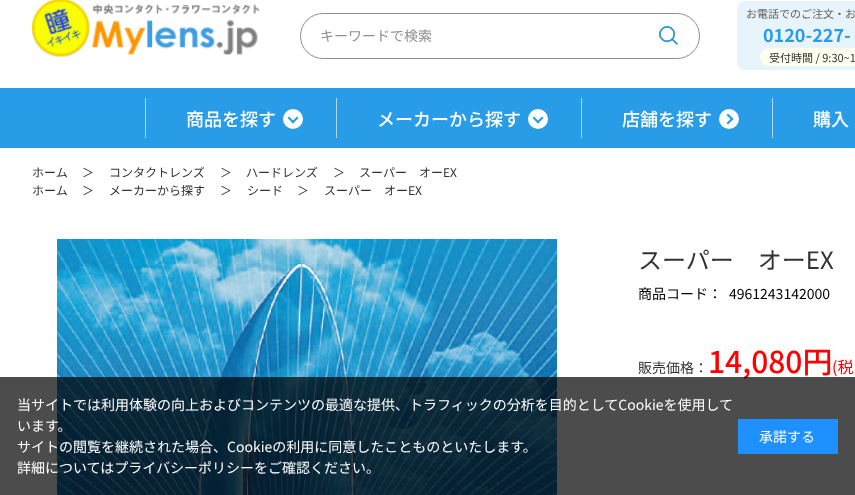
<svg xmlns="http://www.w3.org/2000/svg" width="855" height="495">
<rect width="100%" height="100%" fill="#fff"/>
<image x="32" y="0" width="228" height="57" href="media/1.png"/>
<rect x="300.5" y="13.5" width="399" height="45" rx="22.5" fill="none" stroke="#8f8f8f"/>
<text x="320" y="41" style="font-family:Noto Sans JP;font-size:14px;fill:#8f8f8f">キーワードで検索</text>
<image x="659" y="26" width="20" height="19" href="media/2.png"/>
<rect x="737" y="1" width="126" height="69" rx="8" fill="#e8f4fc"/>
<text x="746" y="18" style="font-family:Noto Sans JP;font-size:11px;fill:#616161">お電話でのご注文・お</text>
<text x="763" y="42" style="font-family:Noto Sans JP;font-size:18px;font-weight:bold;fill:#299ce7">0120-227-</text>
<rect x="760" y="48" width="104" height="18" rx="9" fill="#ffffef"/>
<text x="769" y="62" style="font-family:Noto Sans JP;font-size:11px;fill:#333">受付時間 / 9:30~1</text>
<rect y="88" width="855" height="60" fill="#299ce7"/>
<rect x="145" y="98" width="1" height="40" fill="#b2d8f1"/>
<text x="186" y="126" style="font-family:Noto Sans JP;font-size:18px;font-weight:500;fill:#fff">商品を探す</text>
<circle cx="293" cy="119" r="10" fill="#fff"/>
<path d="M297 116.5l1.5 1.5l-5.5 5.5l-1.5-1.5z" fill="#299ce7"/>
<path d="M289 116.5l5.5 5.5l-1.5 1.5l-5.5-5.5z" fill="#299ce7"/>
<rect x="336" y="98" width="1" height="40" fill="#b2d8f1"/>
<text x="377" y="126" style="font-family:Noto Sans JP;font-size:18px;font-weight:500;fill:#fff">メーカーから探す</text>
<circle cx="538" cy="119" r="10" fill="#fff"/>
<path d="M542 116.5l1.5 1.5l-5.5 5.5l-1.5-1.5z" fill="#299ce7"/>
<path d="M534 116.5l5.5 5.5l-1.5 1.5l-5.5-5.5z" fill="#299ce7"/>
<rect x="581" y="98" width="1" height="40" fill="#b2d8f1"/>
<text x="622" y="126" style="font-family:Noto Sans JP;font-size:18px;font-weight:500;fill:#fff">店舗を探す</text>
<circle cx="729" cy="119" r="10" fill="#fff"/>
<path d="M726.5 115l1.5-1.5l5.5 5.5l-1.5 1.5z" fill="#299ce7"/>
<path d="M726.5 123l5.5-5.5l1.5 1.5l-5.5 5.5z" fill="#299ce7"/>
<rect x="772" y="98" width="1" height="40" fill="#b2d8f1"/>
<text x="813" y="126" style="font-family:Noto Sans JP;font-size:18px;font-weight:500;fill:#fff">購入</text>
<text x="32" y="177" style="font-family:Noto Sans JP;font-size:12px;fill:#333">ホーム</text>
<text x="82" y="177" style="font-family:Noto Sans JP;font-size:12px;fill:#333">＞</text>
<text x="109" y="177" style="font-family:Noto Sans JP;font-size:12px;fill:#333">コンタクトレンズ</text>
<text x="220" y="177" style="font-family:Noto Sans JP;font-size:12px;fill:#333">＞</text>
<text x="246" y="177" style="font-family:Noto Sans JP;font-size:12px;fill:#333">ハードレンズ</text>
<text x="333" y="177" style="font-family:Noto Sans JP;font-size:12px;fill:#333">＞</text>
<text x="359" y="177" style="font-family:Noto Sans JP;font-size:12px;fill:#333">スーパー　オーEX</text>
<text x="32" y="195" style="font-family:Noto Sans JP;font-size:12px;fill:#333">ホーム</text>
<text x="82" y="195" style="font-family:Noto Sans JP;font-size:12px;fill:#333">＞</text>
<text x="109" y="195" style="font-family:Noto Sans JP;font-size:12px;fill:#333">メーカーから探す</text>
<text x="220" y="195" style="font-family:Noto Sans JP;font-size:12px;fill:#333">＞</text>
<text x="247" y="195" style="font-family:Noto Sans JP;font-size:12px;fill:#333">シード</text>
<text x="297" y="195" style="font-family:Noto Sans JP;font-size:12px;fill:#333">＞</text>
<text x="324" y="195" style="font-family:Noto Sans JP;font-size:12px;fill:#333">スーパー　オーEX</text>
<image x="57" y="239" width="500" height="256" href="media/3.png"/>
<text x="638" y="269" style="font-family:Noto Sans JP;font-size:24px;fill:#333">スーパー　オーEX</text>
<text x="638" y="299" style="font-family:Noto Sans JP;font-size:14px;fill:#000">商品コード：</text>
<text x="729" y="299" style="font-family:Noto Sans JP;font-size:14px;fill:#000">4961243142000</text>
<text x="638" y="373" style="font-family:Noto Sans JP;font-size:14px;fill:#333">販売価格：</text>
<text x="708" y="373" style="font-family:Noto Sans JP;font-size:30px;font-weight:500;fill:#f00">14,080円</text>
<text x="832" y="373" style="font-family:Noto Sans JP;font-size:16px;fill:#f00">(税</text>
<rect y="377" width="855" height="118" fill="#000000b3"/>
<text x="17" y="410" style="font-family:Noto Sans JP;font-size:14px;fill:#fff">当サイトでは利用体験の向上およびコンテンツの最適な提供、トラフィックの分析を目的としてCookieを使用して</text>
<text x="17" y="431" style="font-family:Noto Sans JP;font-size:14px;fill:#fff">います。</text>
<text x="17" y="452" style="font-family:Noto Sans JP;font-size:14px;fill:#fff">サイトの閲覧を継続された場合、Cookieの利用に同意したことものといたします。</text>
<text x="17" y="473" style="font-family:Noto Sans JP;font-size:14px;fill:#fff">詳細についてはプライバシーポリシーをご確認ください。</text>
<rect x="738" y="419" width="100" height="35" fill="#1e90ff"/>
<text x="759" y="442" style="font-family:Noto Sans JP;font-size:14px;fill:#fff">承諾する</text>
</svg>
